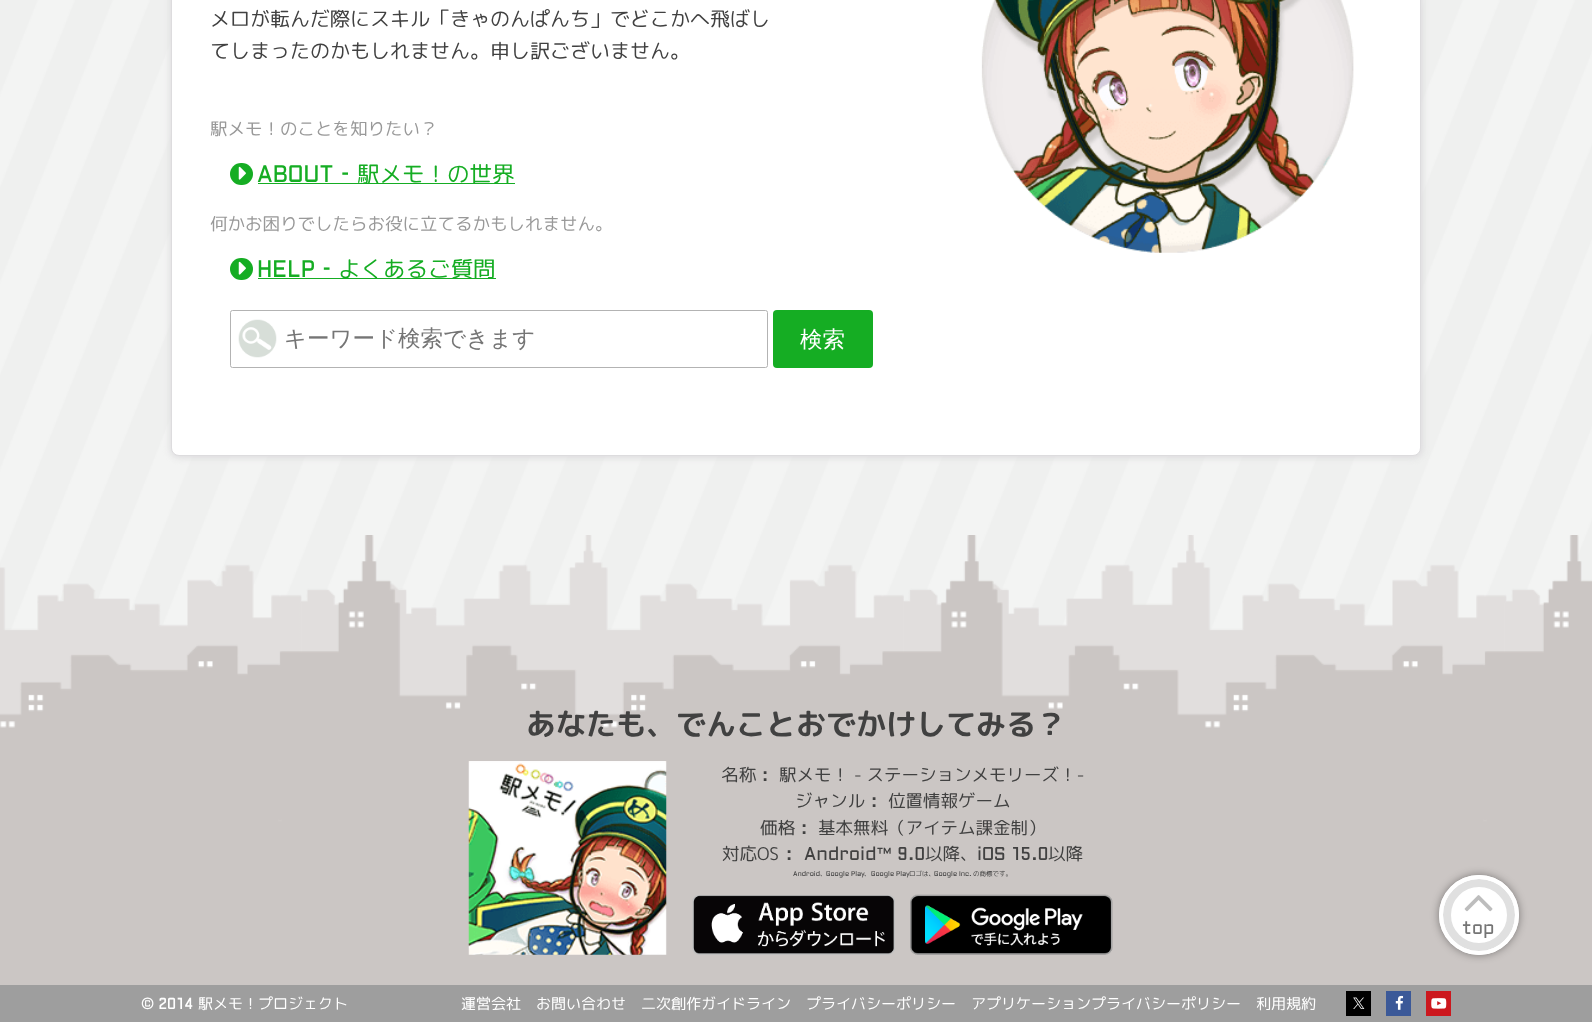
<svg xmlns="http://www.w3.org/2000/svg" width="1592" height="1022">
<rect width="100%" height="100%" fill="#fff"/>
<image x="0" y="0" width="1592" height="653" href="media/1.png"/>
<rect x="170" y="-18" width="1253" height="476" rx="9" fill="#dddcde" filter="blur(3px)"/>
<rect x="171.5" y="-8.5" width="1249" height="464" rx="7.5" fill="#fff" stroke="#dddcde"/>
<text x="210" y="26" style="font-family:'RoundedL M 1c';font-size:20px;fill:#414141">メロが転んだ際にスキル「きゃのんぱんち」でどこかへ飛ばし</text>
<text x="210" y="58" style="font-family:'RoundedL M 1c';font-size:20px;fill:#414141">てしまったのかもしれません。申し訳ございません。</text>
<image x="981" y="0" width="373" height="253" href="media/2.png"/>
<text x="210" y="135" style="font-family:'RoundedL M 1c';font-size:17.5px;fill:#999">駅メモ！のことを知りたい？</text>
<rect x="230" y="163" width="23" height="22" rx="11" fill="#15ad23"/>
<image x="238" y="166" width="8" height="14" href="media/3.png"/>
<text x="257" y="182" style="font-family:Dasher;font-size:22.5px;fill:#15ad23">ABOUT -</text>
<rect x="258" y="183" width="257" height="1" fill="#15ad23"/>
<text x="357" y="182" style="font-family:'RoundedL M 1c';font-size:22.5px;fill:#15ad23">駅メモ！の世界</text>
<text x="210" y="230" style="font-family:'RoundedL M 1c';font-size:17.5px;fill:#999">何かお困りでしたらお役に立てるかもしれません。</text>
<rect x="230" y="258" width="23" height="22" rx="11" fill="#15ad23"/>
<image x="238" y="261" width="8" height="14" href="media/3.png"/>
<text x="257" y="277" style="font-family:Dasher;font-size:22.5px;fill:#15ad23">HELP -</text>
<rect x="258" y="278" width="238" height="1" fill="#15ad23"/>
<text x="338" y="277" style="font-family:'RoundedL M 1c';font-size:22.5px;fill:#15ad23">よくあるご質問</text>
<image x="238" y="319" width="39" height="39" href="media/4.png"/>
<rect x="230.5" y="310.5" width="537" height="57" rx="2" fill="none" stroke="#b3b3b3"/>
<text x="284" y="346" style="font-family:WenQuanYi Zen Hei;font-size:22.5px;font-weight:500;fill:#757575">キーワード検索できます</text>
<rect x="773" y="310" width="100" height="58" rx="4" fill="#15ad23"/>
<text x="800" y="347" style="font-family:WenQuanYi Zen Hei;font-size:22.5px;font-weight:500;fill:#fff">検索</text>
<image x="0" y="535" width="1549" height="287" href="media/5.png"/>
<image x="0" y="535" width="1592" height="450" href="media/6.png"/>
<text x="526" y="735" style="font-family:'RoundedL M 1c';font-size:30px;font-weight:bold;fill:#414141">あなたも、でんことおでかけしてみる？</text>
<image x="468" y="761" width="199" height="194" href="media/7.png"/>
<text x="721" y="781" style="font-family:'RoundedL M 1c';font-size:17.5px;fill:#414141">名称</text>
<text x="761" y="781" style="font-family:Dasher;font-size:17.5px;fill:#414141">:</text>
<text x="779" y="781" style="font-family:'RoundedL M 1c';font-size:17.5px;fill:#414141">駅メモ！ - ステーションメモリーズ！-</text>
<text x="795" y="807" style="font-family:'RoundedL M 1c';font-size:17.5px;fill:#414141">ジャンル</text>
<text x="870" y="807" style="font-family:Dasher;font-size:17.5px;fill:#414141">:</text>
<text x="888" y="807" style="font-family:'RoundedL M 1c';font-size:17.5px;fill:#414141">位置情報ゲーム</text>
<text x="760" y="834" style="font-family:'RoundedL M 1c';font-size:17.5px;fill:#414141">価格</text>
<text x="800" y="834" style="font-family:Dasher;font-size:17.5px;fill:#414141">:</text>
<text x="818" y="834" style="font-family:'RoundedL M 1c';font-size:17.5px;fill:#414141">基本無料（アイテム課金制）</text>
<text x="722" y="860" style="font-family:'RoundedL M 1c';font-size:17.5px;fill:#414141">対応OS</text>
<text x="785" y="860" style="font-family:Dasher;font-size:17.5px;fill:#414141">:</text>
<text x="804" y="860" style="font-family:Dasher;font-size:17.5px;fill:#414141">Android™ 9.0</text>
<text x="925" y="860" style="font-family:'RoundedL M 1c';font-size:17.5px;fill:#414141">以降、</text>
<text x="977" y="860" style="font-family:Dasher;font-size:17.5px;fill:#414141">iOS 15.0</text>
<text x="1048" y="860" style="font-family:'RoundedL M 1c';font-size:17.5px;fill:#414141">以降</text>
<text x="793" y="876" style="font-family:Dasher;font-size:6.5px;fill:#414141">Android</text>
<text x="820" y="876" style="font-family:'RoundedL M 1c';font-size:6.5px;fill:#414141">、</text>
<text x="826" y="876" style="font-family:Dasher;font-size:6.5px;fill:#414141">Google Play</text>
<text x="864" y="876" style="font-family:'RoundedL M 1c';font-size:6.5px;fill:#414141">、</text>
<text x="871" y="876" style="font-family:Dasher;font-size:6.5px;fill:#414141">Google Play</text>
<text x="909" y="876" style="font-family:'RoundedL M 1c';font-size:6.5px;fill:#414141">ロゴは、</text>
<text x="934" y="876" style="font-family:Dasher;font-size:6.5px;fill:#414141">Google Inc.</text>
<text x="973" y="876" style="font-family:'RoundedL M 1c';font-size:6.5px;fill:#414141">の商標です。</text>
<image x="692" y="895" width="203" height="60" href="media/8.png"/>
<image x="910" y="894" width="203" height="61" href="media/9.png"/>
<rect x="1439" y="875" width="80" height="80" rx="40" fill="#00000066" filter="blur(4px)"/>
<circle cx="1479" cy="915" r="40" fill="#fff"/>
<circle cx="1479" cy="915" r="32" fill="none" stroke="#e0e0e0" stroke-width="8"/>
<circle cx="1479" cy="915" r="38" fill="none" stroke="#fff" stroke-width="4"/>
<image x="1464" y="895" width="29" height="17" href="media/10.png"/>
<text x="1462" y="934" style="font-family:Dasher;font-size:17.5px;fill:#757575">top</text>
<rect y="985" width="1592" height="37" fill="#9e9e9e"/>
<text x="141" y="1009" style="font-family:Dasher;font-size:15px;fill:#fff">© 2014</text>
<text x="198" y="1009" style="font-family:'RoundedL M 1c';font-size:15px;fill:#fff">駅メモ！プロジェクト</text>
<text x="461" y="1009" style="font-family:'RoundedL M 1c';font-size:15px;fill:#fff">運営会社</text>
<text x="536" y="1009" style="font-family:'RoundedL M 1c';font-size:15px;fill:#fff">お問い合わせ</text>
<text x="641" y="1009" style="font-family:'RoundedL M 1c';font-size:15px;fill:#fff">二次創作ガイドライン</text>
<text x="806" y="1009" style="font-family:'RoundedL M 1c';font-size:15px;fill:#fff">プライバシーポリシー</text>
<text x="971" y="1009" style="font-family:'RoundedL M 1c';font-size:15px;fill:#fff">アプリケーションプライバシーポリシー</text>
<text x="1256" y="1009" style="font-family:'RoundedL M 1c';font-size:15px;fill:#fff">利用規約</text>
<rect x="1346" y="991" width="25" height="25" fill="#000"/>
<image x="1353" y="997" width="12" height="12" href="media/11.png"/>
<rect x="1386" y="991" width="25" height="25" fill="#3b5998"/>
<image x="1395" y="995" width="9" height="15" href="media/12.png"/>
<rect x="1426" y="991" width="25" height="25" fill="#cc181e"/>
<image x="1431" y="998" width="16" height="11" href="media/13.png"/>
</svg>
